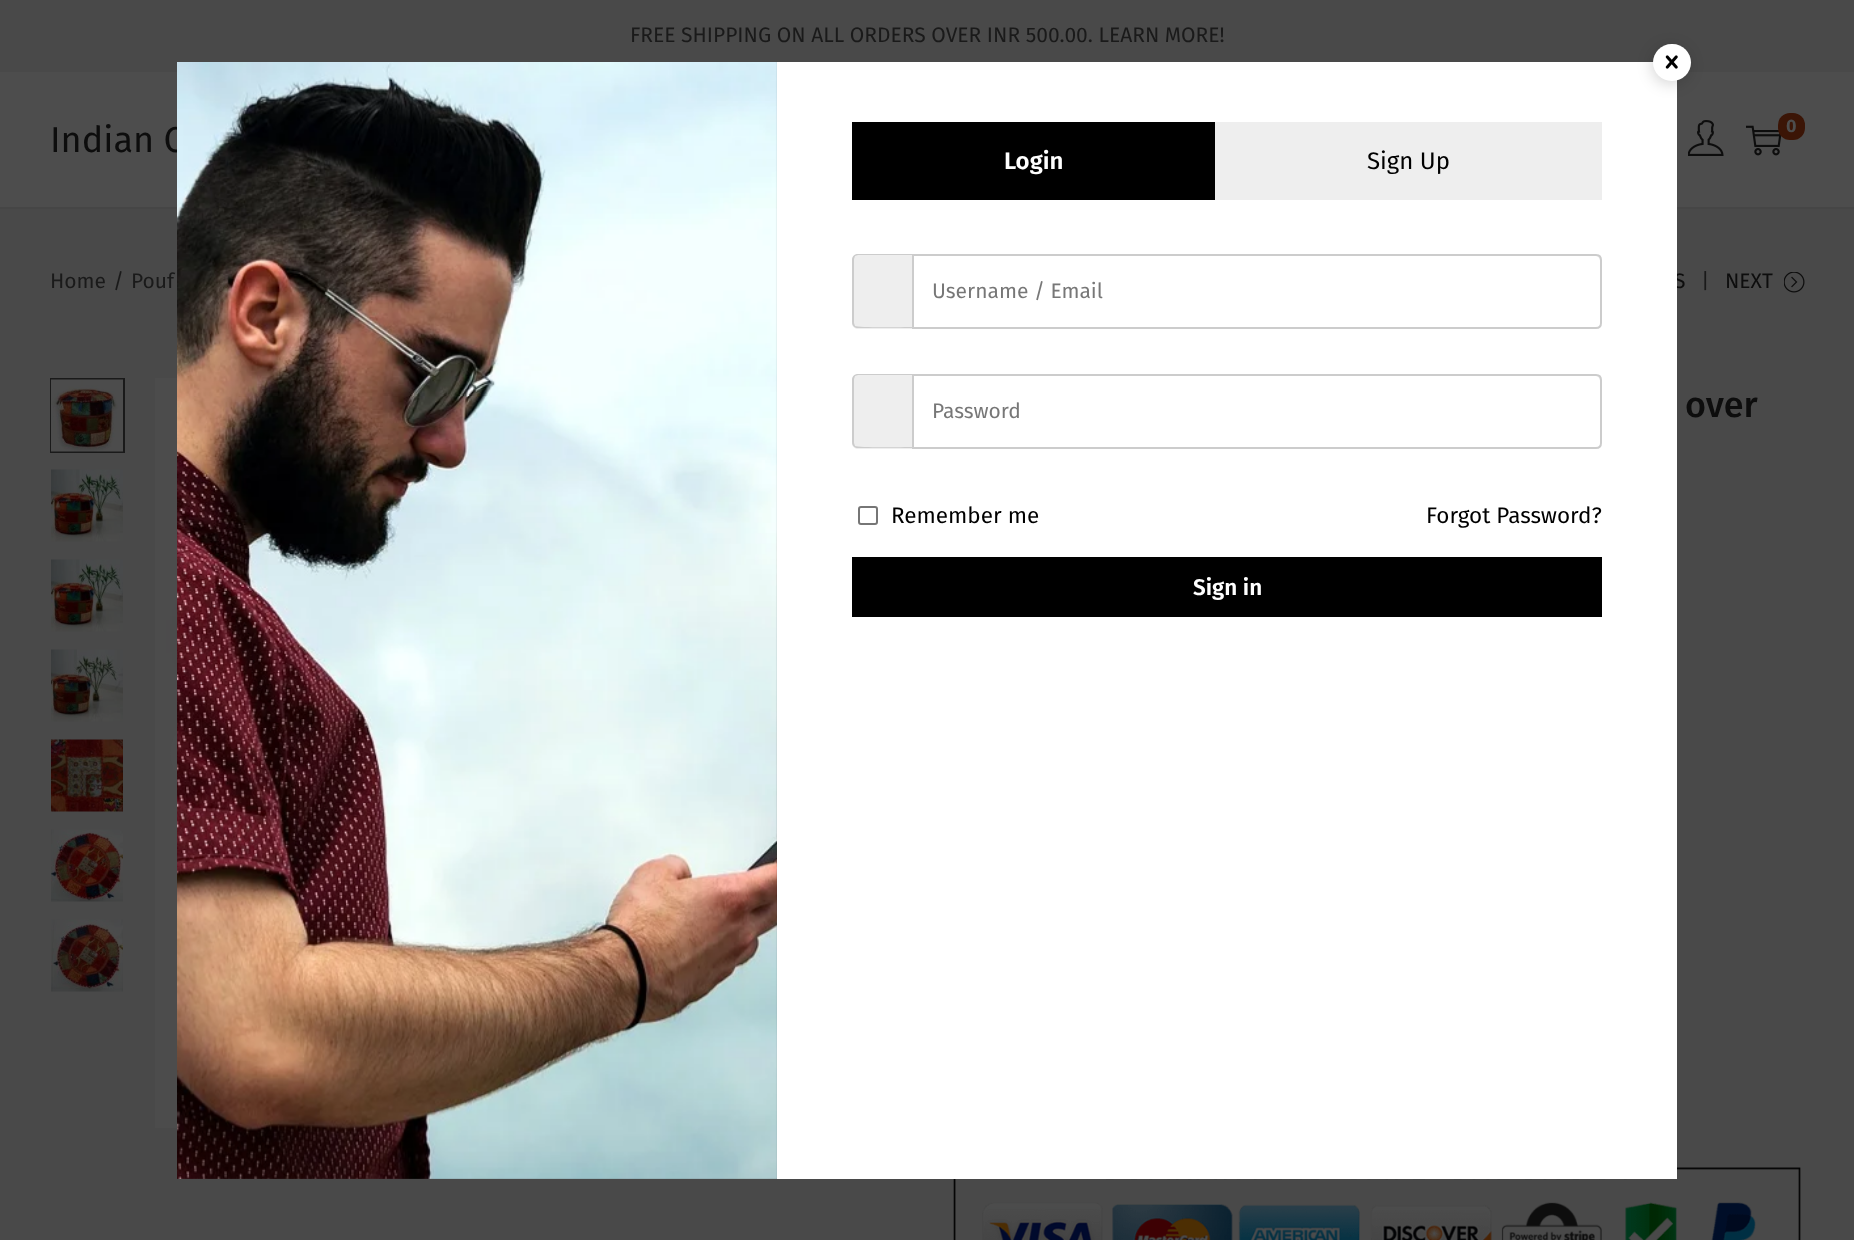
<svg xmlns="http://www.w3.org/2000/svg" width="1854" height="1240">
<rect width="100%" height="100%" fill="#4d4d4d"/>
<rect width="1854" height="72" fill="#494949"/>
<text x="630" y="42" style="font-family:Fira Sans;font-size:21px;fill:#1a1a1a">FREE SHIPPING ON ALL ORDERS OVER INR 500.00. LEARN MORE!</text>
<rect y="207" width="1854" height="2" fill="#464646"/>
<text x="50" y="152" style="font-family:Fira Sans;font-size:36px;fill:#0d0d0d">Indian C</text>
<image x="1688" y="120" width="36" height="36" href="media/1.png"/>
<image x="1746" y="125" width="36" height="31" href="media/2.png"/>
<rect x="1778" y="113" width="27" height="27" rx="12" fill="#3b1506"/>
<text x="1786" y="132" style="font-family:Fira Sans;font-size:18px;font-weight:bold;fill:#4d4d4d">0</text>
<rect y="209" width="1854" height="1031" fill="#494949"/>
<text x="1674" y="288" style="font-family:Fira Sans;font-size:21px;fill:#0d0d0d">S</text>
<image x="953" y="1167" width="848" height="73" href="media/13.png"/>
<rect x="777" y="62" width="900" height="1117" fill="#fff"/>
<rect x="1652" y="47" width="37" height="37" rx="18.5" fill="#0000002b" filter="blur(7.5px)"/>
<rect x="1653" y="44" width="38" height="37" rx="18.5" fill="#fff"/>
<image x="1665" y="55" width="13" height="14" href="media/3.png"/>
<image x="155" y="378" width="622" height="750" href="media/12.png"/>
<circle cx="207.5" cy="753.5" r="37.5" fill="#4d4d4d"/>
<image x="177" y="62" width="600" height="1117" href="media/4.png"/>
<rect x="852" y="122" width="363" height="78" fill="#000"/>
<text x="1004" y="169" style="font-family:Fira Sans;font-size:24px;font-weight:600;fill:#fff">Login</text>
<rect x="1215" y="122" width="387" height="78" fill="#eee"/>
<text x="1367" y="169" style="font-family:Fira Sans;font-size:24px;fill:#000">Sign Up</text>
<path d="M858 254h54v75h-54c-3.5 0-6-2.5-6-6v-63c0-3.5 2.5-6 6-6z" fill="#eee"/>
<path d="M858 254h54v74h-54c-3 0-6-2-6-6v-62c0-4 3-6 6-6zm0 1h54v72c-7 0-54 1-57-1l-1-3v-64l1-3z" fill="#ccc" fill-rule="evenodd"/>
<path d="M914 256h682c2 0 4 3 4 5v64c1-1 1-2 1-3v-62c0-3-2-5-5-5h-682z" fill="#ececec"/>
<path d="M913 255h683c3 0 5 2 5 5v63c0 3-2 5-5 5h-683z" fill="none" stroke="#ccc" stroke-width="2"/>
<text x="932" y="298" style="font-family:Fira Sans;font-size:21px;fill:#777">Username / Email</text>
<path d="M858 374h54v75h-54c-3.5 0-6-2.5-6-6v-63c0-3.5 2.5-6 6-6z" fill="#eee"/>
<path d="M858 374h54v74h-54c-3 0-6-2-6-6v-62c0-4 3-6 6-6zm0 1h54v72c-7 0-54 1-57-1l-1-3v-64l1-3z" fill="#ccc" fill-rule="evenodd"/>
<path d="M914 376h682c2 0 4 3 4 5v64c1-1 1-2 1-3v-62c0-3-2-5-5-5h-682z" fill="#ececec"/>
<path d="M913 375h683c3 0 5 2 5 5v63c0 3-2 5-5 5h-683z" fill="none" stroke="#ccc" stroke-width="2"/>
<text x="932" y="418" style="font-family:Fira Sans;font-size:21px;fill:#777">Password</text>
<rect x="859" y="507" width="18" height="17" rx="2" fill="none" stroke="#767676" stroke-width="2"/>
<text x="891" y="523" style="font-family:Fira Sans;font-size:22.5px;fill:#000">Remember me</text>
<text x="1426" y="523" style="font-family:Fira Sans;font-size:22.5px;fill:#000">Forgot Password?</text>
<rect x="852" y="557" width="750" height="60" fill="#000"/>
<text x="1193" y="595" style="font-family:Fira Sans;font-size:22.5px;font-weight:600;fill:#fff">Sign in</text>
<text x="50" y="288" style="font-family:Fira Sans;font-size:21px;fill:#1a1a1a">Home</text>
<text x="113" y="288" style="font-family:Fira Sans;font-size:21px;fill:#1a1a1a">/</text>
<text x="131" y="288" style="font-family:Fira Sans;font-size:21px;fill:#1a1a1a">Pouf</text>
<text x="1701" y="288" style="font-family:Fira Sans;font-size:21px;fill:#1a1a1a">|</text>
<text x="1725" y="288" style="font-family:Fira Sans;font-size:21px;fill:#0d0d0d">NEXT</text>
<image x="1784" y="272" width="21" height="21" href="media/5.png"/>
<rect x="51" y="379" width="73" height="73" fill="none" stroke="#1a1a1a" stroke-width="2"/>
<image x="51" y="379" width="72" height="73" href="media/6.png"/>
<image x="51" y="469" width="72" height="73" href="media/7.png"/>
<image x="51" y="559" width="72" height="73" href="media/7.png"/>
<image x="51" y="649" width="72" height="73" href="media/8.png"/>
<image x="51" y="739" width="72" height="73" href="media/9.png"/>
<image x="51" y="829" width="72" height="73" href="media/10.png"/>
<image x="51" y="919" width="72" height="73" href="media/11.png"/>
<text x="1685" y="417" style="font-family:Fira Sans;font-size:36px;font-weight:500;fill:#0d0d0d">over</text>
</svg>
